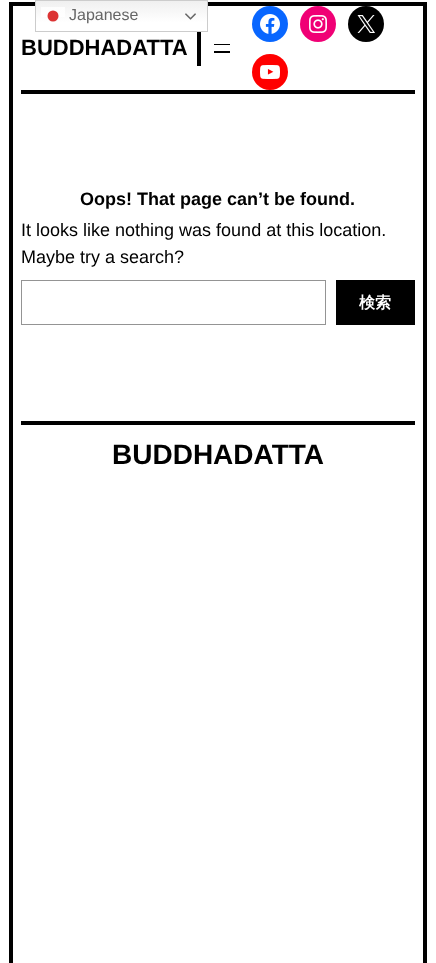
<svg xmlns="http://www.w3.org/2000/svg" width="436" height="963">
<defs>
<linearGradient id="g1" gradientUnits="userSpaceOnUse" x1="122" y1="0" x2="122" y2="32"><stop offset="0" stop-color="#efefef"/><stop offset="0.7" stop-color="#fff"/></linearGradient>
<linearGradient id="g2" gradientUnits="userSpaceOnUse" x1="122" y1="0" x2="122" y2="32"><stop offset="0" stop-color="#fcfcfc"/><stop offset="0.7" stop-color="#fff"/></linearGradient>
</defs>
<rect width="100%" height="100%" fill="#fff"/>
<rect x="9" y="2" width="418" height="4" fill="#000"/>
<rect x="197" y="30" width="4" height="36" fill="#000"/>
<rect x="36" y="1" width="171" height="30" fill="url(#g1)"/>
<rect x="41" y="7" width="24" height="10" fill="url(#g2)"/>
<rect x="35.5" y="0.5" width="172" height="31" fill="none" stroke="#ccc"/>
<circle cx="53" cy="16" r="5.5" fill="#dc3333"/>
<text x="69" y="20" style="font-family:Liberation Sans;font-size:16px;fill:#666">Japanese</text>
<image x="185" y="13" width="11" height="7" href="media/1.png"/>
<rect x="423" y="2" width="4" height="961" fill="#000"/>
<rect x="9" y="2" width="4" height="961" fill="#000"/>
<rect x="21" y="90" width="394" height="4" fill="#000"/>
<text x="21" y="55" style="font-family:Liberation Sans;font-size:22px;font-weight:bold;fill:#000">BUDDHADATTA</text>
<rect x="214" y="44" width="16" height="1" fill="#000"/>
<rect x="214" y="51" width="16" height="2" fill="#000"/>
<circle cx="270" cy="24" r="18" fill="#0866ff"/>
<image x="260" y="14" width="20" height="20" href="media/2.png"/>
<circle cx="318" cy="24" r="18" fill="#f00075"/>
<image x="309" y="15" width="18" height="18" href="media/3.png"/>
<circle cx="366" cy="24" r="18" fill="#000"/>
<image x="357" y="15" width="18" height="18" href="media/4.png"/>
<circle cx="270" cy="72" r="18" fill="#f00"/>
<image x="260" y="65" width="20" height="14" href="media/5.png"/>
<text x="80" y="205" style="font-family:Liberation Sans;font-size:18px;font-weight:bold;fill:#000">Oops! That page can’t be found.</text>
<text x="21" y="236" style="font-family:Liberation Sans;font-size:18px;fill:#000">It looks like nothing was found at this location.</text>
<text x="21" y="263" style="font-family:Liberation Sans;font-size:18px;fill:#000">Maybe try a search?</text>
<rect x="21.5" y="280.5" width="304" height="44" fill="none" stroke="#949494"/>
<rect x="336" y="280" width="79" height="45" fill="#000"/>
<text x="359" y="308" style="font-family:WenQuanYi Zen Hei;font-size:16px;font-weight:bold;fill:#fff">検索</text>
<rect x="21" y="421" width="394" height="4" fill="#000"/>
<text x="112" y="464" style="font-family:Liberation Sans;font-size:28px;font-weight:bold;fill:#000">BUDDHADATTA</text>
</svg>
